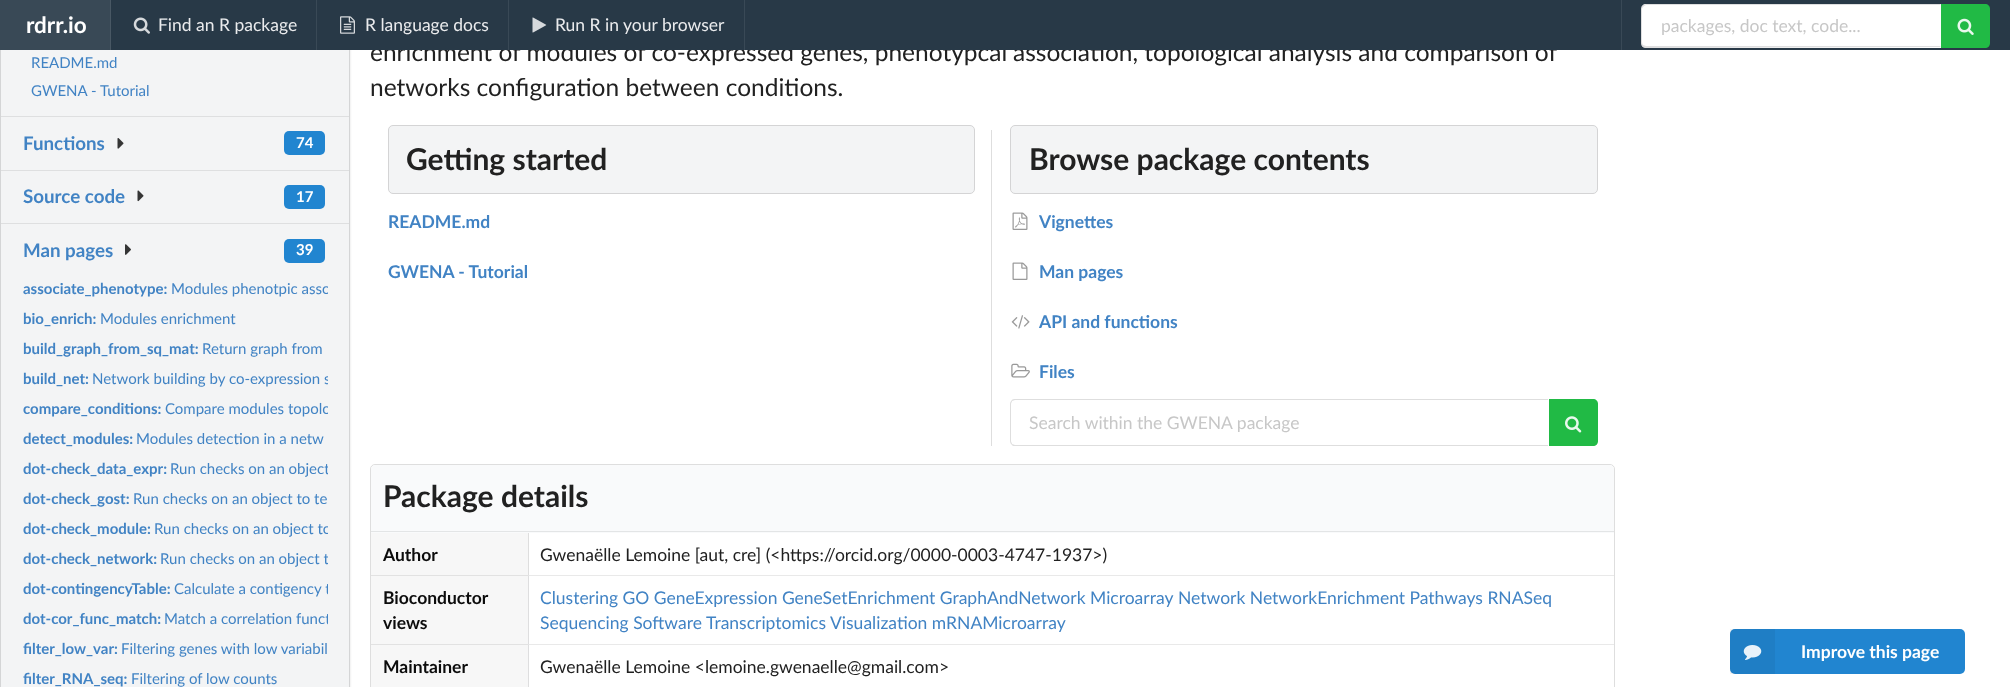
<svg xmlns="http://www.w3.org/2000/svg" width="2010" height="687">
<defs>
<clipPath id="clip1"><rect x="23" y="274" width="305" height="30"/></clipPath>
<clipPath id="clip2"><rect x="23" y="364" width="305" height="30"/></clipPath>
<clipPath id="clip3"><rect x="23" y="394" width="305" height="30"/></clipPath>
<clipPath id="clip4"><rect x="23" y="454" width="305" height="30"/></clipPath>
<clipPath id="clip5"><rect x="23" y="514" width="305" height="30"/></clipPath>
<clipPath id="clip6"><rect x="23" y="544" width="305" height="30"/></clipPath>
<clipPath id="clip7"><rect x="23" y="574" width="305" height="30"/></clipPath>
<clipPath id="clip8"><rect x="23" y="604" width="305" height="30"/></clipPath>
</defs>
<rect width="100%" height="100%" fill="#fff"/>
<rect y="-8" width="350" height="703" rx="5" fill="#22242626" filter="blur(1px)"/>
<rect x="1" y="50" width="348" height="637" fill="#f3f4f5"/>
<rect x="0.5" y="-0.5" width="349" height="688" fill="none" stroke="#d4d5d6"/>
<text x="370" y="61" style="font-family:Lato;font-size:24.5px;fill:#212121">enrichment of modules of co-expressed genes, phenotypcal</text>
<text x="1013" y="61" style="font-family:Lato;font-size:24.5px;fill:#212121">association, topological analysis and comparison of</text>
<rect x="111" width="1899" height="50" fill="#283947"/>
<rect width="110" height="50" fill="#394956"/>
<text x="26" y="33" style="font-family:Lato;font-size:22.5px;font-weight:bold;fill:#fff">rdrr.io</text>
<rect x="110" width="1" height="50" fill="#495864"/>
<image x="133" y="17" width="17" height="17" href="media/1.png"/>
<text x="158" y="31" style="font-family:Lato;font-size:17.5px;fill:#eaebed">Find an R package</text>
<rect x="316" width="1" height="50" fill="#394956"/>
<image x="340" y="16" width="15" height="18" href="media/2.png"/>
<text x="365" y="31" style="font-family:Lato;font-size:17.5px;fill:#eaebed">R language docs</text>
<rect x="508" width="1" height="50" fill="#394956"/>
<image x="532" y="17" width="15" height="16" href="media/3.png"/>
<text x="555" y="31" style="font-family:Lato;font-size:17.5px;fill:#eaebed">Run R in your browser</text>
<rect x="744" width="1" height="50" fill="#394956"/>
<rect x="1621" width="1" height="50" fill="#394956"/>
<path d="M1646 4h295v44h-295c-3 0-5-2-5-5v-34c0-3 2-5 5-5z" fill="#fff"/>
<path d="M1646 4l-3 1l1 1l2-1h294l1-1z" fill="#22242626"/>
<path d="M1644 48l-2-2l1-1l3 1h294l1 1z" fill="#22242626"/>
<path d="M1641 7l2-2l1 1c-1 1-2 2-2 3v33c0 2 1 3 1 3l-1 1l-1-2z" fill="#22242626"/>
<text x="1661" y="32" style="font-family:Lato;font-size:17.5px;fill:#c7c7c7">packages, doc text, code...</text>
<path d="M1941 4h44c3 0 5 2 5 5v34c0 3-2 5-5 5h-44z" fill="#21ba45"/>
<image x="1957" y="18" width="17" height="17" href="media/4.png"/>
<text x="31" y="68" style="font-family:Lato;font-size:15px;fill:#4183c4">README.md</text>
<text x="31" y="96" style="font-family:Lato;font-size:15px;fill:#4183c4">GWENA - Tutorial</text>
<rect x="1" y="116" width="348" height="1" fill="#dedfe0"/>
<text x="23" y="150" style="font-family:Lato;font-size:18.75px;font-weight:bold;fill:#4183c4">Functions</text>
<image x="117" y="138" width="7" height="11" href="media/5.png"/>
<rect x="284" y="131" width="41" height="24" rx="5" fill="#2185d0"/>
<text x="296" y="148" style="font-family:Lato;font-size:15px;font-weight:bold;fill:#fff">74</text>
<rect x="1" y="170" width="348" height="1" fill="#dedfe0"/>
<text x="23" y="203" style="font-family:Lato;font-size:18.75px;font-weight:bold;fill:#4183c4">Source code</text>
<image x="137" y="190" width="7" height="12" href="media/6.png"/>
<rect x="284" y="185" width="41" height="24" rx="5" fill="#2185d0"/>
<text x="296" y="202" style="font-family:Lato;font-size:15px;font-weight:bold;fill:#fff">17</text>
<rect x="1" y="223" width="348" height="1" fill="#dedfe0"/>
<text x="23" y="257" style="font-family:Lato;font-size:18.75px;font-weight:bold;fill:#4183c4">Man pages</text>
<image x="125" y="244" width="6" height="11" href="media/7.png"/>
<rect x="284" y="239" width="41" height="24" rx="5" fill="#2185d0"/>
<text x="296" y="255" style="font-family:Lato;font-size:15px;font-weight:bold;fill:#fff">39</text>
<text x="23" y="294" style="font-family:Lato;font-size:15px;font-weight:bold;fill:#4183c4">associate_phenotype:</text>
<g clip-path="url(#clip1)">
<text x="171" y="294" style="font-family:Lato;font-size:15px;fill:#4183c4">Modules phenotpic asso</text>
</g>
<text x="23" y="324" style="font-family:Lato;font-size:15px;font-weight:bold;fill:#4183c4">bio_enrich:</text>
<text x="100" y="324" style="font-family:Lato;font-size:15px;fill:#4183c4">Modules enrichment</text>
<text x="23" y="354" style="font-family:Lato;font-size:15px;font-weight:bold;fill:#4183c4">build_graph_from_sq_mat:</text>
<text x="202" y="354" style="font-family:Lato;font-size:15px;fill:#4183c4">Return graph from</text>
<text x="23" y="384" style="font-family:Lato;font-size:15px;font-weight:bold;fill:#4183c4">build_net:</text>
<g clip-path="url(#clip2)">
<text x="92" y="384" style="font-family:Lato;font-size:15px;fill:#4183c4">Network building by co-expression s</text>
</g>
<text x="23" y="414" style="font-family:Lato;font-size:15px;font-weight:bold;fill:#4183c4">compare_conditions:</text>
<g clip-path="url(#clip3)">
<text x="165" y="414" style="font-family:Lato;font-size:15px;fill:#4183c4">Compare modules topolo</text>
</g>
<text x="23" y="444" style="font-family:Lato;font-size:15px;font-weight:bold;fill:#4183c4">detect_modules:</text>
<text x="136" y="444" style="font-family:Lato;font-size:15px;fill:#4183c4">Modules detection in a netw</text>
<text x="23" y="474" style="font-family:Lato;font-size:15px;font-weight:bold;fill:#4183c4">dot-check_data_expr:</text>
<g clip-path="url(#clip4)">
<text x="170" y="474" style="font-family:Lato;font-size:15px;fill:#4183c4">Run checks on an object</text>
</g>
<text x="23" y="504" style="font-family:Lato;font-size:15px;font-weight:bold;fill:#4183c4">dot-check_gost:</text>
<text x="133" y="504" style="font-family:Lato;font-size:15px;fill:#4183c4">Run checks on an object to te</text>
<text x="23" y="534" style="font-family:Lato;font-size:15px;font-weight:bold;fill:#4183c4">dot-check_module:</text>
<g clip-path="url(#clip5)">
<text x="154" y="534" style="font-family:Lato;font-size:15px;fill:#4183c4">Run checks on an object to</text>
</g>
<text x="23" y="564" style="font-family:Lato;font-size:15px;font-weight:bold;fill:#4183c4">dot-check_network:</text>
<g clip-path="url(#clip6)">
<text x="160" y="564" style="font-family:Lato;font-size:15px;fill:#4183c4">Run checks on an object t</text>
</g>
<text x="23" y="594" style="font-family:Lato;font-size:15px;font-weight:bold;fill:#4183c4">dot-contingencyTable:</text>
<g clip-path="url(#clip7)">
<text x="174" y="594" style="font-family:Lato;font-size:15px;fill:#4183c4">Calculate a contigency t</text>
</g>
<text x="23" y="624" style="font-family:Lato;font-size:15px;font-weight:bold;fill:#4183c4">dot-cor_func_match:</text>
<g clip-path="url(#clip8)">
<text x="164" y="624" style="font-family:Lato;font-size:15px;fill:#4183c4">Match a correlation funct</text>
</g>
<text x="23" y="654" style="font-family:Lato;font-size:15px;font-weight:bold;fill:#4183c4">filter_low_var:</text>
<text x="121" y="654" style="font-family:Lato;font-size:15px;fill:#4183c4">Filtering genes with low variabil</text>
<text x="23" y="684" style="font-family:Lato;font-size:15px;font-weight:bold;fill:#4183c4">filter_RNA_seq:</text>
<text x="131" y="684" style="font-family:Lato;font-size:15px;fill:#4183c4">Filtering of low counts</text>
<text x="370" y="96" style="font-family:Lato;font-size:24.5px;fill:#212121">networks configuration between conditions.</text>
<rect x="388.5" y="125.5" width="586" height="68" rx="4.5" fill="#f3f4f5" stroke="#d4d4d5"/>
<text x="406" y="170" style="font-family:Lato;font-size:30px;font-weight:bold;fill:#212121">Getting started</text>
<text x="388" y="228" style="font-family:Lato;font-size:17.5px;font-weight:bold;fill:#4183c4">README.md</text>
<text x="388" y="278" style="font-family:Lato;font-size:17.5px;font-weight:bold;fill:#4183c4">GWENA - Tutorial</text>
<rect x="991" y="130" width="1" height="316" fill="#dedede"/>
<rect x="1010.5" y="125.5" width="587" height="68" rx="4.5" fill="#f3f4f5" stroke="#d4d4d5"/>
<text x="1029" y="170" style="font-family:Lato;font-size:30px;font-weight:bold;fill:#212121">Browse package contents</text>
<image x="1012" y="212" width="16" height="18" href="media/8.png"/>
<text x="1039" y="228" style="font-family:Lato;font-size:17.5px;font-weight:bold;fill:#4183c4">Vignettes</text>
<image x="1012" y="262" width="16" height="18" href="media/9.png"/>
<text x="1039" y="278" style="font-family:Lato;font-size:17.5px;font-weight:bold;fill:#4183c4">Man pages</text>
<image x="1011" y="315" width="19" height="14" href="media/10.png"/>
<text x="1039" y="328" style="font-family:Lato;font-size:17.5px;font-weight:bold;fill:#4183c4">API and functions</text>
<image x="1011" y="363" width="19" height="15" href="media/11.png"/>
<text x="1039" y="378" style="font-family:Lato;font-size:17.5px;font-weight:bold;fill:#4183c4">Files</text>
<path d="M1015 399c-1 0-3 0-3 1v1l3-1h533v-1z" fill="#dedede"/>
<path d="M1548 446h-533c-1 0-3 0-3-1v-1l3 1h533z" fill="#dedede"/>
<path d="M1010 404v37c0 2 1 3 2 4v-1c0-1-1-2-1-3v-37c0-1 1-2 1-3v-1c-1 1-2 2-2 4z" fill="#dedede"/>
<text x="1029" y="429" style="font-family:Lato;font-size:17.5px;fill:#c7c7c7">Search within the GWENA package</text>
<path d="M1549 399h44c3 0 5 2 5 5v37c0 3-2 5-5 5h-44z" fill="#21ba45"/>
<image x="1565" y="416" width="17" height="17" href="media/12.png"/>
<rect x="370.5" y="464.5" width="1244" height="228" rx="4.5" fill="none" stroke="#dedede"/>
<path d="M376 465h1233c3 0 5 2 5 5v63h-1243v-63c0-3 2-5 5-5z" fill="#f9fafb"/>
<rect x="371" y="531" width="1243" height="1" fill="#e3e5e6"/>
<text x="383" y="507" style="font-family:Lato;font-size:30px;font-weight:bold;fill:#212121">Package details</text>
<rect x="371" y="533" width="157" height="42" fill="#f7f7f7"/>
<text x="383" y="561" style="font-family:Lato;font-size:17.5px;font-weight:bold;fill:#0c0c0c">Author</text>
<rect x="528" y="533" width="1" height="42" fill="#dedede"/>
<text x="540" y="561" style="font-family:Lato;font-size:17.5px;fill:#212121">Gwenaëlle Lemoine [aut, cre] (&lt;https://orcid.org/0000-0003-4747-1937&gt;)</text>
<rect x="371" y="576" width="157" height="68" fill="#f7f7f7"/>
<rect x="371" y="575" width="157" height="1" fill="#e2e2e2"/>
<text x="383" y="604" style="font-family:Lato;font-size:17.5px;font-weight:bold;fill:#0c0c0c">Bioconductor</text>
<text x="383" y="629" style="font-family:Lato;font-size:17.5px;font-weight:bold;fill:#0c0c0c">views</text>
<path d="M528 575h1086v1h-1085z" fill="#e9e9e9"/>
<path d="M528 644v-69l1 1v68z" fill="#22242626"/>
<text x="540" y="604" style="font-family:Lato;font-size:17.5px;fill:#4183c4">Clustering GO GeneExpression GeneSetEnrichment GraphAndNetwork Microarray</text>
<text x="1178" y="604" style="font-family:Lato;font-size:17.5px;fill:#4183c4">Network NetworkEnrichment Pathways RNASeq</text>
<text x="540" y="629" style="font-family:Lato;font-size:17.5px;fill:#4183c4">Sequencing Software</text>
<text x="706" y="629" style="font-family:Lato;font-size:17.5px;fill:#4183c4">Transcriptomics</text>
<text x="830" y="629" style="font-family:Lato;font-size:17.5px;fill:#4183c4">Visualization mRNAMicroarray</text>
<rect x="371" y="645" width="157" height="42" fill="#f7f7f7"/>
<rect x="371" y="644" width="157" height="1" fill="#e2e2e2"/>
<text x="383" y="673" style="font-family:Lato;font-size:17.5px;font-weight:bold;fill:#0c0c0c">Maintainer</text>
<path d="M528 644h1086v1h-1085z" fill="#e9e9e9"/>
<path d="M528 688v-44l1 1v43z" fill="#22242626"/>
<text x="540" y="673" style="font-family:Lato;font-size:17.5px;fill:#212121">Gwenaëlle Lemoine &lt;lemoine.gwenaelle@gmail.com&gt;</text>
<rect x="1730" y="629" width="235" height="45" rx="5" fill="#2185d0"/>
<rect x="1730" y="629" width="45" height="45" fill="#0000000d"/>
<image x="1743" y="645" width="19" height="15" href="media/13.png"/>
<text x="1801" y="658" style="font-family:Lato;font-size:17.5px;font-weight:bold;fill:#fff">Improve this page</text>
</svg>
